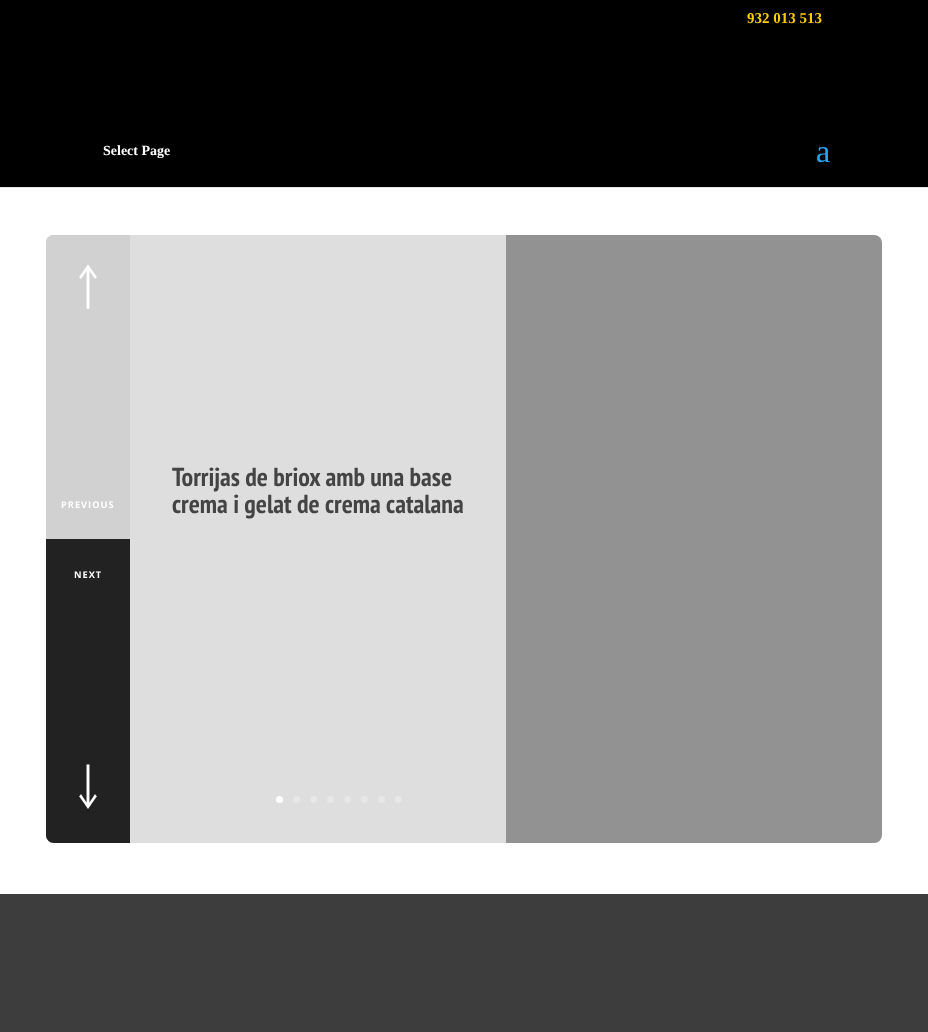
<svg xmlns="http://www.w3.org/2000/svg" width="928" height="1032">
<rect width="100%" height="100%" fill="#fff"/>
<rect width="928" height="187" fill="#000"/>
<text x="747" y="23" style="font-family:Liberation Serif;font-size:15px;font-weight:bold;fill:#fcce01">932 013 513</text>
<rect y="187" width="928" height="1" fill="#e6e6e6"/>
<text x="103" y="155" style="font-family:Liberation Serif;font-size:14px;font-weight:bold;fill:#fff">Select Page</text>
<text x="816" y="162" style="font-family:Liberation Serif;font-size:32px;fill:#2ea3f2">a</text>
<rect x="46" y="235" width="836" height="608" rx="8" fill="#d1d1d1"/>
<rect x="46" y="235" width="836" height="608" rx="8" fill="#0000004d"/>
<path d="M54 235h452v608h-452c-4.5 0-8-3.5-8-8v-592c0-4.5 3.5-8 8-8z" fill="#ffffffb3"/>
<path d="M54 235h76v304h-84v-296c0-4.5 3.5-8 8-8z" fill="#d1d1d1"/>
<text x="76" y="305" style="font-family:Chiron Hei HK;font-size:48px;fill:#fff">￪</text>
<text x="61" y="508" style="font-family:Open Sans;font-size:9.25px;font-weight:bold;letter-spacing:1px;fill:#fff">PREVIOUS</text>
<path d="M46 539h84v304h-76c-4.5 0-8-3.5-8-8z" fill="#222"/>
<text x="74" y="578" style="font-family:Open Sans;font-size:9.25px;font-weight:bold;letter-spacing:1px;fill:#fff">NEXT</text>
<text x="76" y="805" style="font-family:Chiron Hei HK;font-size:48px;fill:#fff">￬</text>
<text x="172" y="486" style="font-family:PT Sans Narrow;font-size:26px;font-weight:bold;fill:#444">Torrijas de briox amb una base</text>
<text x="172" y="513" style="font-family:PT Sans Narrow;font-size:26px;font-weight:bold;fill:#444">crema i gelat de crema catalana</text>
<circle cx="279.5" cy="799.5" r="3.5" fill="#fff"/>
<circle cx="296.5" cy="799.5" r="3.5" fill="#e7e7e7"/>
<circle cx="313.5" cy="799.5" r="3.5" fill="#e7e7e7"/>
<circle cx="330.5" cy="799.5" r="3.5" fill="#e7e7e7"/>
<circle cx="347.5" cy="799.5" r="3.5" fill="#e7e7e7"/>
<circle cx="364.5" cy="799.5" r="3.5" fill="#e7e7e7"/>
<circle cx="381.5" cy="799.5" r="3.5" fill="#e7e7e7"/>
<circle cx="398.5" cy="799.5" r="3.5" fill="#e7e7e7"/>
<rect y="894" width="928" height="138" fill="#3d3d3d"/>
</svg>
